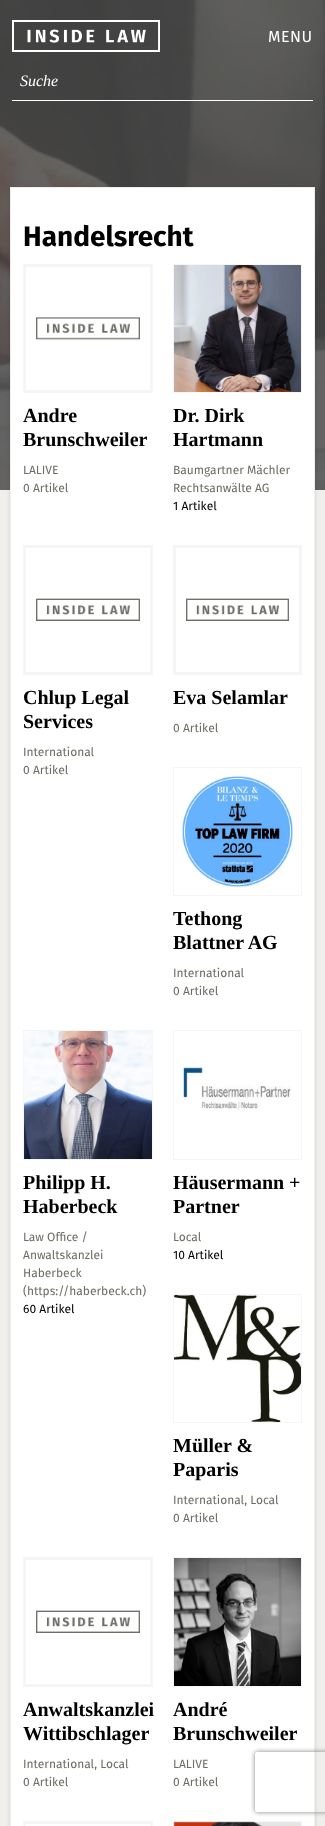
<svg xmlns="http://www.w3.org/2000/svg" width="325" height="1826">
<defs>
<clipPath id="clip1"><path d="M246 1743h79v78h-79zm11 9h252c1 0 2 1 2 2v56c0 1-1 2-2 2h-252c-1 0-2-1-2-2v-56c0-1 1-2 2-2z" clip-rule="evenodd"/></clipPath>
</defs>
<rect width="100%" height="100%" fill="#f0efec"/>
<image x="0" y="0" width="325" height="490" href="media/1.png"/>
<image x="12" y="20" width="148" height="32" href="media/2.png"/>
<text x="268" y="42" style="font-family:Fira Sans;font-size:16px;letter-spacing:0.5px;fill:#fff">MENU</text>
<rect x="12" y="100" width="301" height="1" fill="#fff"/>
<text x="20" y="86" style="font-family:Tinos;font-size:16px;font-style:italic;fill:#fff">Suche</text>
<rect x="10" y="189" width="305" height="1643" fill="#0000001f" filter="blur(2px)"/>
<rect x="10.5" y="187.5" width="304" height="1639" fill="#fff" stroke="#f0efec"/>
<text x="23" y="246" style="font-family:Fira Sans;font-size:28px;font-weight:bold;fill:#000">Handelsrecht</text>
<rect x="24.5" y="265.5" width="127" height="126" fill="none" stroke="#f6f5f5" stroke-width="3"/>
<image x="36" y="317" width="104" height="23" href="media/3.png"/>
<text x="23" y="422" style="font-family:Tinos;font-size:20px;font-weight:bold;fill:#000">Andre</text>
<text x="23" y="446" style="font-family:Tinos;font-size:20px;font-weight:bold;fill:#000">Brunschweiler</text>
<text x="23" y="474" style="font-family:Fira Sans;font-size:12px;fill:#6d6e64">LALIVE</text>
<text x="23" y="492" style="font-family:Fira Sans;font-size:12px;fill:#6d6e64">0 Artikel</text>
<rect x="173.5" y="264.5" width="128" height="128" fill="none" stroke="#f6f5f5"/>
<image x="174" y="265" width="127" height="127" href="media/4.png"/>
<text x="173" y="422" style="font-family:Tinos;font-size:20px;font-weight:bold;fill:#000">Dr. Dirk</text>
<text x="173" y="446" style="font-family:Tinos;font-size:20px;font-weight:bold;fill:#000">Hartmann</text>
<text x="173" y="474" style="font-family:Fira Sans;font-size:12px;fill:#6d6e64">Baumgartner Mächler</text>
<text x="173" y="492" style="font-family:Fira Sans;font-size:12px;fill:#6d6e64">Rechtsanwälte AG</text>
<text x="173" y="510" style="font-family:Fira Sans;font-size:12px;fill:#000">1 Artikel</text>
<rect x="24.5" y="546.5" width="127" height="127" fill="none" stroke="#f6f5f5" stroke-width="3"/>
<image x="36" y="598" width="104" height="23" href="media/5.png"/>
<text x="23" y="704" style="font-family:Tinos;font-size:20px;font-weight:bold;fill:#000">Chlup Legal</text>
<text x="23" y="728" style="font-family:Tinos;font-size:20px;font-weight:bold;fill:#000">Services</text>
<text x="23" y="756" style="font-family:Fira Sans;font-size:12px;fill:#6d6e64">International</text>
<text x="23" y="774" style="font-family:Fira Sans;font-size:12px;fill:#6d6e64">0 Artikel</text>
<rect x="174.5" y="546.5" width="126" height="127" fill="none" stroke="#f6f5f5" stroke-width="3"/>
<image x="186" y="598" width="103" height="23" href="media/6.png"/>
<text x="173" y="704" style="font-family:Tinos;font-size:20px;font-weight:bold;fill:#000">Eva Selamlar</text>
<text x="173" y="732" style="font-family:Fira Sans;font-size:12px;fill:#6d6e64">0 Artikel</text>
<rect x="173.5" y="767.5" width="128" height="128" fill="none" stroke="#f6f5f5"/>
<image x="182" y="775" width="111" height="112" href="media/7.png"/>
<text x="173" y="925" style="font-family:Tinos;font-size:20px;font-weight:bold;fill:#000">Tethong</text>
<text x="173" y="949" style="font-family:Tinos;font-size:20px;font-weight:bold;fill:#000">Blattner AG</text>
<text x="173" y="977" style="font-family:Fira Sans;font-size:12px;fill:#6d6e64">International</text>
<text x="173" y="995" style="font-family:Fira Sans;font-size:12px;fill:#6d6e64">0 Artikel</text>
<rect x="23.5" y="1030.5" width="129" height="129" fill="none" stroke="#f6f5f5"/>
<image x="24" y="1031" width="128" height="128" href="media/8.png"/>
<text x="23" y="1189" style="font-family:Tinos;font-size:20px;font-weight:bold;fill:#000">Philipp H.</text>
<text x="23" y="1213" style="font-family:Tinos;font-size:20px;font-weight:bold;fill:#000">Haberbeck</text>
<text x="23" y="1241" style="font-family:Fira Sans;font-size:12px;fill:#6d6e64">Law Office /</text>
<text x="23" y="1259" style="font-family:Fira Sans;font-size:12px;fill:#6d6e64">Anwaltskanzlei</text>
<text x="23" y="1277" style="font-family:Fira Sans;font-size:12px;fill:#6d6e64">Haberbeck</text>
<text x="23" y="1295" style="font-family:Fira Sans;font-size:12px;fill:#6d6e64">(https://haberbeck.ch)</text>
<text x="23" y="1313" style="font-family:Fira Sans;font-size:12px;fill:#000">60 Artikel</text>
<rect x="173.5" y="1030.5" width="128" height="129" fill="none" stroke="#f6f5f5"/>
<image x="181" y="1064" width="110" height="46" href="media/9.png"/>
<text x="173" y="1189" style="font-family:Tinos;font-size:20px;font-weight:bold;fill:#000">Häusermann +</text>
<text x="173" y="1213" style="font-family:Tinos;font-size:20px;font-weight:bold;fill:#000">Partner</text>
<text x="173" y="1241" style="font-family:Fira Sans;font-size:12px;fill:#6d6e64">Local</text>
<text x="173" y="1259" style="font-family:Fira Sans;font-size:12px;fill:#000">10 Artikel</text>
<rect x="173.5" y="1294.5" width="128" height="128" fill="none" stroke="#f6f5f5"/>
<image x="174" y="1295" width="127" height="127" href="media/10.png"/>
<text x="173" y="1452" style="font-family:Tinos;font-size:20px;font-weight:bold;fill:#000">Müller &amp;</text>
<text x="173" y="1476" style="font-family:Tinos;font-size:20px;font-weight:bold;fill:#000">Paparis</text>
<text x="173" y="1504" style="font-family:Fira Sans;font-size:12px;fill:#6d6e64">International, Local</text>
<text x="173" y="1522" style="font-family:Fira Sans;font-size:12px;fill:#6d6e64">0 Artikel</text>
<rect x="24.5" y="1558.5" width="127" height="127" fill="none" stroke="#f6f5f5" stroke-width="3"/>
<image x="36" y="1610" width="104" height="23" href="media/5.png"/>
<text x="23" y="1716" style="font-family:Tinos;font-size:20px;font-weight:bold;fill:#000">Anwaltskanzlei</text>
<text x="23" y="1740" style="font-family:Tinos;font-size:20px;font-weight:bold;fill:#000">Wittibschlager</text>
<text x="23" y="1768" style="font-family:Fira Sans;font-size:12px;fill:#6d6e64">International, Local</text>
<text x="23" y="1786" style="font-family:Fira Sans;font-size:12px;fill:#6d6e64">0 Artikel</text>
<rect x="173.5" y="1557.5" width="128" height="129" fill="none" stroke="#f6f5f5"/>
<image x="174" y="1558" width="127" height="128" href="media/11.png"/>
<text x="173" y="1716" style="font-family:Tinos;font-size:20px;font-weight:bold;fill:#000">André</text>
<text x="173" y="1740" style="font-family:Tinos;font-size:20px;font-weight:bold;fill:#000">Brunschweiler</text>
<text x="173" y="1768" style="font-family:Fira Sans;font-size:12px;fill:#6d6e64">LALIVE</text>
<text x="173" y="1786" style="font-family:Fira Sans;font-size:12px;fill:#6d6e64">0 Artikel</text>
<rect x="24.5" y="1822.5" width="127" height="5" fill="none" stroke="#f6f5f5" stroke-width="3"/>
<rect x="173.5" y="1821.5" width="128" height="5" fill="none" stroke="#f6f5f5"/>
<image x="173" y="1821" width="128" height="5" href="media/12.png"/>
<g clip-path="url(#clip1)">
<rect x="255" y="1752" width="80" height="60" rx="2" fill="#808080" filter="blur(2.5px)"/>
</g>
</svg>
